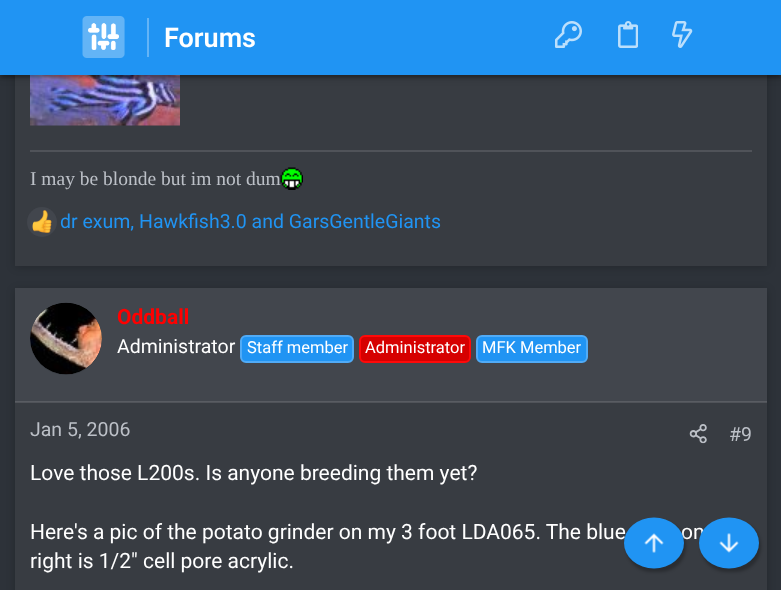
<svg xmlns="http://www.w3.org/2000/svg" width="781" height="590">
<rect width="100%" height="100%" fill="#2d3239"/>
<rect x="15" y="-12" width="752" height="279" fill="#00000033" filter="blur(4px)"/>
<rect x="15" y="75" width="752" height="191" fill="#383c42"/>
<image x="30" y="75" width="150" height="51" href="media/5.png"/>
<rect y="2" width="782" height="75" fill="#00000033" filter="blur(4px)"/>
<rect x="3" y="8" width="776" height="69" fill="#0000001f" filter="blur(1px)"/>
<rect y="3" width="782" height="75" fill="#00000024" filter="blur(1.5px)"/>
<rect width="781" height="75" fill="#2094f3"/>
<image x="82" y="16" width="43" height="42" href="media/1.png"/>
<rect x="147" y="18" width="2" height="39" fill="#63b4f7"/>
<text x="164" y="47" style="font-family:Roboto;font-size:27px;font-weight:600;fill:#fff">Forums</text>
<image x="555" y="21" width="27" height="27" href="media/2.png"/>
<image x="618" y="21" width="20" height="27" href="media/3.png"/>
<image x="672" y="21" width="21" height="27" href="media/4.png"/>
<rect x="30" y="150" width="722" height="2" fill="#505359"/>
<text x="30" y="185" style="font-family:Liberation Serif;font-size:19.5px;fill:#bcc0c7">I may be blonde but im not dum</text>
<image x="280" y="167" width="23" height="23" href="media/6.png"/>
<circle cx="42" cy="222" r="15" fill="#42464d"/>
<image x="32" y="210" width="20" height="23" href="media/7.png"/>
<text x="60" y="228" style="font-family:Roboto;font-size:19.5px;fill:#2094f3">dr exum, Hawkfish3.0 and GarsGentleGiants</text>
<rect x="15" y="290" width="752" height="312" fill="#00000033" filter="blur(4px)"/>
<rect x="15" y="402" width="752" height="188" fill="#383c42"/>
<rect x="15" y="288" width="752" height="114" fill="#42464d"/>
<rect x="15" y="401" width="752" height="2" fill="#ffffff1f"/>
<circle cx="66" cy="339" r="36" fill="#383c42"/>
<image x="30" y="302" width="72" height="73" href="media/8.png"/>
<text x="117" y="324" style="font-family:Roboto;font-size:21px;font-weight:bold;fill:#f00">Oddball</text>
<text x="117" y="353" style="font-family:Roboto;font-size:19.5px;fill:#fff">Administrator</text>
<rect x="241" y="336" width="112" height="26" rx="5" fill="#2094f3" stroke="#51abf6" stroke-width="2"/>
<text x="247" y="353" style="font-family:Roboto;font-size:16.5px;fill:#fff">Staff member</text>
<rect x="360" y="336" width="110" height="26" rx="5" fill="#d60000" stroke="#ff0a0a" stroke-width="2"/>
<text x="365" y="353" style="font-family:Roboto;font-size:16.5px;fill:#fff">Administrator</text>
<rect x="477" y="336" width="110" height="26" rx="5" fill="#2094f3" stroke="#51abf6" stroke-width="2"/>
<text x="482" y="353" style="font-family:Roboto;font-size:16.5px;fill:#fff">MFK Member</text>
<text x="30" y="436" style="font-family:Roboto;font-size:19.5px;fill:#bcc0c7">Jan 5, 2006</text>
<image x="689" y="424" width="18" height="20" href="media/9.png"/>
<text x="729" y="441" style="font-family:Roboto;font-size:19.5px;fill:#bcc0c7">#9</text>
<text x="30" y="480" style="font-family:Roboto;font-size:21px;fill:#fff">Love those L200s. Is anyone breeding them yet?</text>
<text x="30" y="539" style="font-family:Roboto;font-size:21px;fill:#fff">Here's a pic of the potato grinder on my 3 foot LDA065. The blue</text>
<text x="681" y="539" style="font-family:Roboto;font-size:21px;fill:#fff">on</text>
<text x="30" y="568" style="font-family:Roboto;font-size:21px;fill:#fff">right is 1/2" cell pore acrylic.</text>
<rect x="626" y="521" width="60" height="51" rx="25.5" fill="#00000040" filter="blur(1.5px)"/>
<ellipse cx="654" cy="543" rx="30" ry="25.5" fill="#2094f3"/>
<image x="644" y="533" width="20" height="20" href="media/10.png"/>
<rect x="701" y="521" width="60" height="51" rx="25.5" fill="#00000040" filter="blur(1.5px)"/>
<ellipse cx="729" cy="543" rx="30" ry="25.5" fill="#2094f3"/>
<image x="719" y="533" width="20" height="20" href="media/11.png"/>
</svg>
